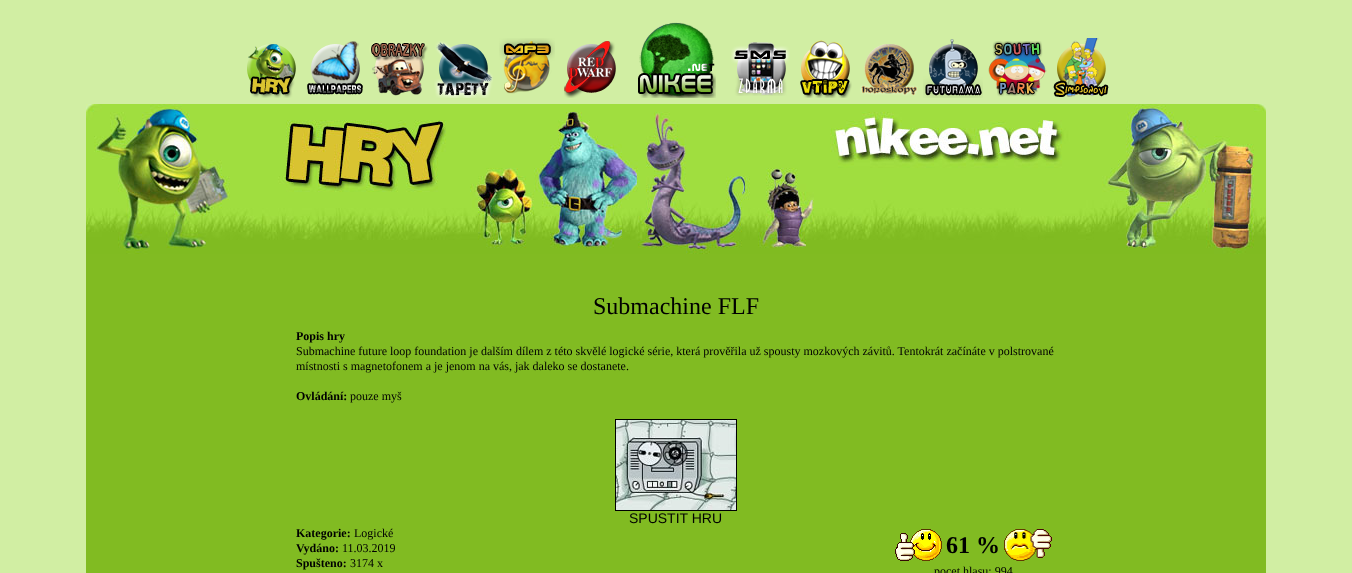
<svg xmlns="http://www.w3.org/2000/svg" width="1352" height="573">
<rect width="100%" height="100%" fill="#d1eea3"/>
<image x="247" y="44" width="49" height="54" href="media/1.png"/>
<image x="307" y="41" width="56" height="54" href="media/2.png"/>
<image x="369" y="41" width="59" height="55" href="media/3.png"/>
<image x="434" y="41" width="59" height="57" href="media/4.png"/>
<image x="499" y="38" width="56" height="56" href="media/5.png"/>
<image x="564" y="41" width="52" height="57" href="media/6.png"/>
<image x="638" y="22" width="78" height="76" href="media/7.png"/>
<image x="731" y="42" width="59" height="54" href="media/8.png"/>
<image x="800" y="40" width="52" height="58" href="media/9.png"/>
<image x="860" y="44" width="58" height="52" href="media/10.png"/>
<image x="923" y="39" width="60" height="59" href="media/11.png"/>
<image x="988" y="41" width="59" height="56" href="media/12.png"/>
<image x="1053" y="38" width="56" height="59" href="media/13.png"/>
<image x="86" y="104" width="1180" height="150" href="media/14.png"/>
<rect x="86" y="254" width="1180" height="319" fill="#81bb22"/>
<text x="593" y="314" style="font-family:Liberation Serif;font-size:24px;fill:#000">Submachine FLF</text>
<text x="296" y="340" style="font-family:Liberation Serif;font-size:12px;font-weight:bold;fill:#000">Popis hry</text>
<text x="296" y="355" style="font-family:Liberation Serif;font-size:12px;fill:#000">Submachine future loop foundation je dalším dílem z této skvělé logické série, která prověřila už spousty mozkových závitů. Tentokrát začínáte v polstrované</text>
<text x="296" y="370" style="font-family:Liberation Serif;font-size:12px;fill:#000">místnosti s magnetofonem a je jenom na vás, jak daleko se dostanete.</text>
<text x="296" y="400" style="font-family:Liberation Serif;font-size:12px;font-weight:bold;fill:#000">Ovládání:</text>
<text x="350" y="400" style="font-family:Liberation Serif;font-size:12px;fill:#000">pouze myš</text>
<rect x="615.5" y="419.5" width="121" height="91" fill="none" stroke="#000"/>
<image x="616" y="420" width="120" height="90" href="media/15.png"/>
<text x="629" y="523" style="font-family:Liberation Sans;font-size:14px;fill:#000">SPUSTIT HRU</text>
<text x="296" y="537" style="font-family:Liberation Serif;font-size:12px;font-weight:bold;fill:#000">Kategorie:</text>
<text x="354" y="537" style="font-family:Liberation Serif;font-size:12px;fill:#000">Logické</text>
<text x="296" y="552" style="font-family:Liberation Serif;font-size:12px;font-weight:bold;fill:#000">Vydáno:</text>
<text x="342" y="552" style="font-family:Liberation Serif;font-size:12px;fill:#000">11.03.2019</text>
<image x="895" y="529" width="47" height="32" href="media/16.png"/>
<text x="946" y="553" style="font-family:Liberation Serif;font-size:24px;font-weight:bold;fill:#000">61 %</text>
<image x="1004" y="529" width="48" height="32" href="media/17.png"/>
<text x="934" y="575" style="font-family:Liberation Serif;font-size:12px;fill:#000">pocet hlasu: 994</text>
<text x="296" y="567" style="font-family:Liberation Serif;font-size:12px;font-weight:bold;fill:#000">Spušteno:</text>
<text x="350" y="567" style="font-family:Liberation Serif;font-size:12px;fill:#000">3174 x</text>
</svg>
